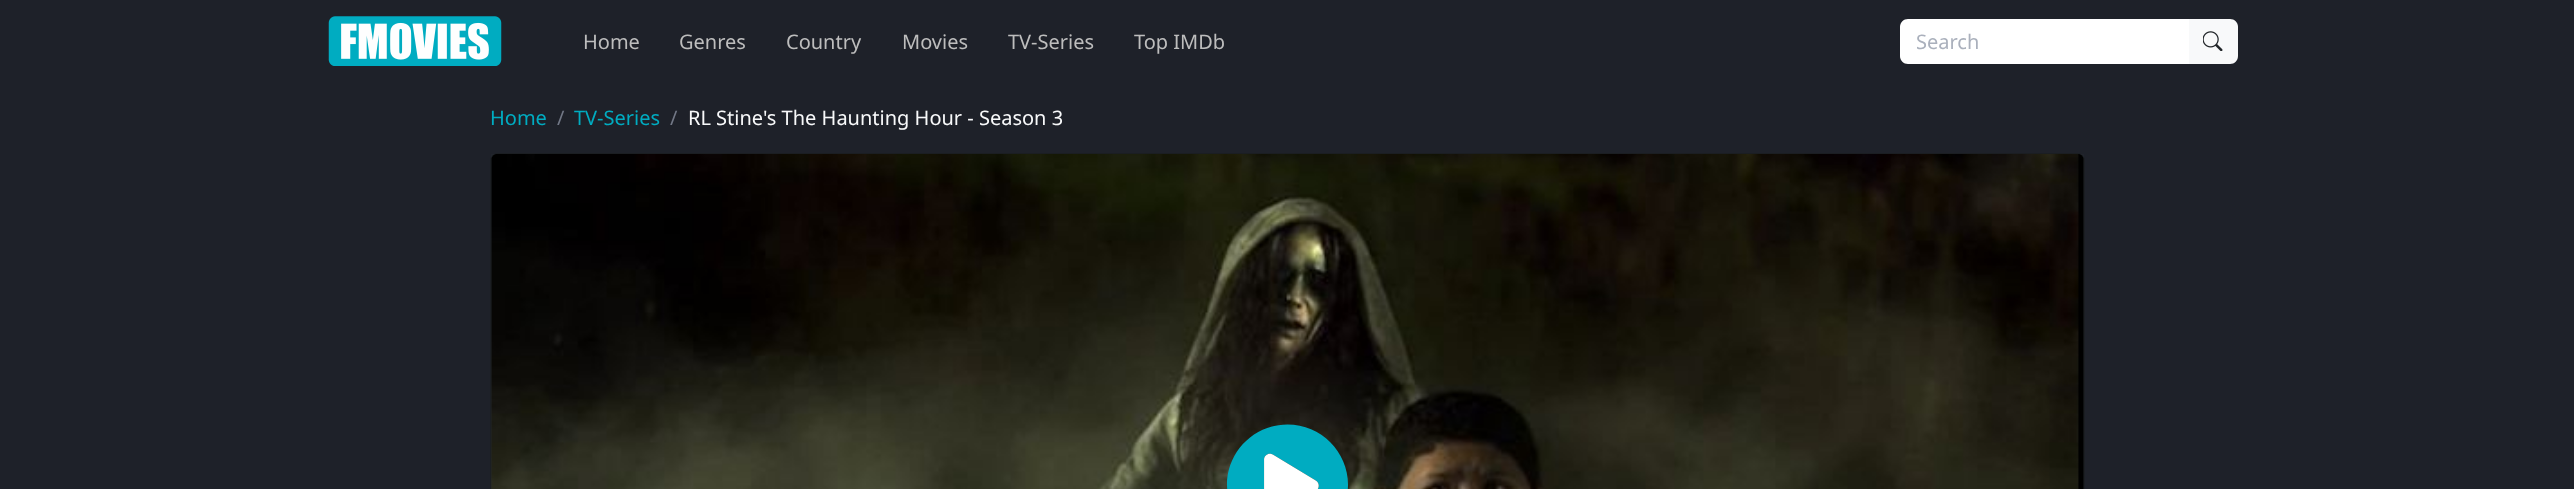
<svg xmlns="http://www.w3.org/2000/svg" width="2574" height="489">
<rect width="100%" height="100%" fill="#1e2129"/>
<image x="328" y="16" width="174" height="50" href="media/1.png"/>
<text x="583" y="49" style="font-family:Noto Sans;font-size:20px;fill:#bdbdbd">Home</text>
<text x="679" y="49" style="font-family:Noto Sans;font-size:20px;fill:#bdbdbd">Genres</text>
<text x="786" y="49" style="font-family:Noto Sans;font-size:20px;fill:#bdbdbd">Country</text>
<text x="902" y="49" style="font-family:Noto Sans;font-size:20px;fill:#bdbdbd">Movies</text>
<text x="1008" y="49" style="font-family:Noto Sans;font-size:20px;fill:#bdbdbd">TV-Series</text>
<text x="1134" y="49" style="font-family:Noto Sans;font-size:20px;fill:#bdbdbd">Top IMDb</text>
<path d="M2188 19h42c4.5 0 8 3.5 8 8v29c0 4.5-3.5 8-8 8h-42z" fill="#f8f9fa"/>
<path d="M1908 19h281v45h-281c-4.5 0-8-3.5-8-8v-29c0-4.5 3.5-8 8-8z" fill="#fff"/>
<text x="1916" y="49" style="font-family:Noto Sans;font-size:20px;fill:#aab0bc">Search</text>
<image x="2203" y="31" width="20" height="20" href="media/2.png"/>
<text x="490" y="125" style="font-family:Noto Sans;font-size:20px;fill:#00acc1">Home</text>
<text x="557" y="125" style="font-family:Noto Sans;font-size:20px;fill:#727886">/</text>
<text x="574" y="125" style="font-family:Noto Sans;font-size:20px;fill:#00acc1">TV-Series</text>
<text x="670" y="125" style="font-family:Noto Sans;font-size:20px;fill:#727886">/</text>
<text x="688" y="125" style="font-family:Noto Sans;font-size:20px;fill:#f8f9fa">RL Stine's The Haunting Hour - Season 3</text>
<rect x="490.5" y="153.5" width="1594" height="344" rx="7.5" fill="#212529" stroke="#1b1e22"/>
<rect x="491" y="154" width="1593" height="335" fill="#8e95a508"/>
<image x="491" y="154" width="1593" height="335" href="media/3.png"/>
<image x="1226" y="424" width="122" height="65" href="media/4.png"/>
</svg>
